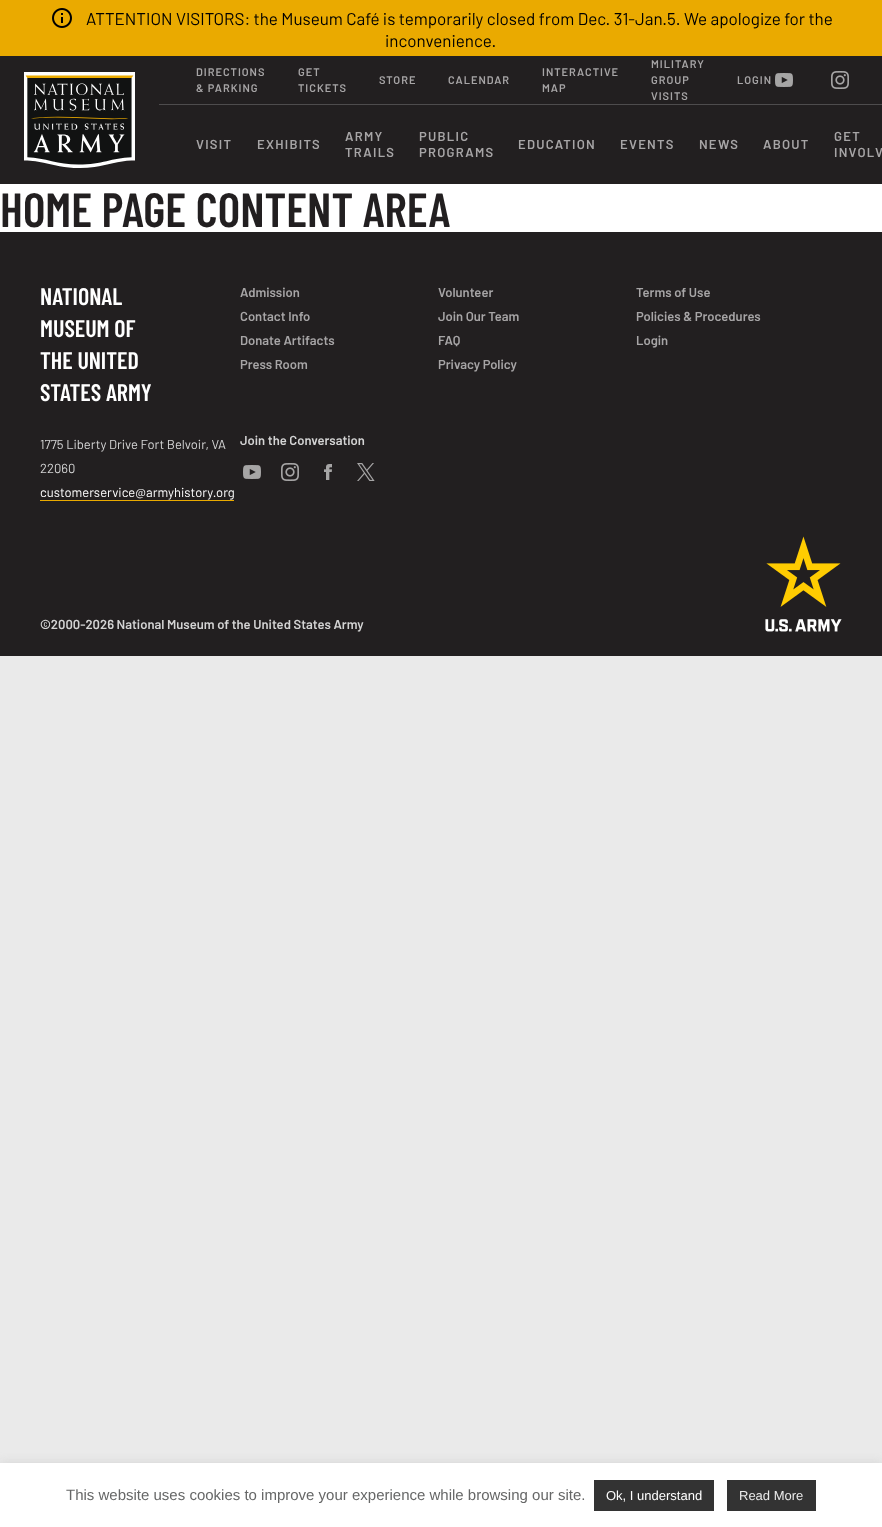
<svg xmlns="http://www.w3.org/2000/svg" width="882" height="1527">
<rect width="100%" height="100%" fill="#eaeaea"/>
<rect width="882" height="56" fill="#eaaa00"/>
<image x="52" y="8" width="20" height="20" href="media/1.png"/>
<text x="86" y="25" style="font-family:Barlow;font-size:17px;fill:#000">ATTENTION VISITORS: the Museum Café is temporarily closed from Dec. 31-Jan.5. We apologize for the</text>
<text x="385" y="47" style="font-family:Barlow;font-size:17px;fill:#000">inconvenience.</text>
<rect y="56" width="882" height="128" fill="#221f20"/>
<image x="24" y="72" width="111" height="96" href="media/2.png"/>
<rect x="159" y="104" width="723" height="1" fill="#4e4c4d"/>
<text x="196" y="76" style="font-family:Barlow;font-size:11px;font-weight:600;letter-spacing:1px;fill:#a7a5a6">DIRECTIONS</text>
<text x="196" y="92" style="font-family:Barlow;font-size:11px;font-weight:600;letter-spacing:1px;fill:#a7a5a6">&amp; PARKING</text>
<text x="298" y="76" style="font-family:Barlow;font-size:11px;font-weight:600;letter-spacing:1px;fill:#a7a5a6">GET</text>
<text x="298" y="92" style="font-family:Barlow;font-size:11px;font-weight:600;letter-spacing:1px;fill:#a7a5a6">TICKETS</text>
<text x="379" y="84" style="font-family:Barlow;font-size:11px;font-weight:600;letter-spacing:1px;fill:#a7a5a6">STORE</text>
<text x="448" y="84" style="font-family:Barlow;font-size:11px;font-weight:600;letter-spacing:1px;fill:#a7a5a6">CALENDAR</text>
<text x="542" y="76" style="font-family:Barlow;font-size:11px;font-weight:600;letter-spacing:1px;fill:#a7a5a6">INTERACTIVE</text>
<text x="542" y="92" style="font-family:Barlow;font-size:11px;font-weight:600;letter-spacing:1px;fill:#a7a5a6">MAP</text>
<text x="651" y="68" style="font-family:Barlow;font-size:11px;font-weight:600;letter-spacing:1px;fill:#a7a5a6">MILITARY</text>
<text x="651" y="84" style="font-family:Barlow;font-size:11px;font-weight:600;letter-spacing:1px;fill:#a7a5a6">GROUP</text>
<text x="651" y="100" style="font-family:Barlow;font-size:11px;font-weight:600;letter-spacing:1px;fill:#a7a5a6">VISITS</text>
<text x="737" y="84" style="font-family:Barlow;font-size:11px;font-weight:600;letter-spacing:1px;fill:#a7a5a6">LOGIN</text>
<image x="775" y="73" width="18" height="14" href="media/3.png"/>
<image x="831" y="71" width="18" height="18" href="media/4.png"/>
<text x="196" y="149" style="font-family:Barlow;font-size:13px;font-weight:600;letter-spacing:1.25px;fill:#a7a5a6">VISIT</text>
<text x="257" y="149" style="font-family:Barlow;font-size:13px;font-weight:600;letter-spacing:1.25px;fill:#a7a5a6">EXHIBITS</text>
<text x="345" y="141" style="font-family:Barlow;font-size:13px;font-weight:600;letter-spacing:1.25px;fill:#a7a5a6">ARMY</text>
<text x="345" y="157" style="font-family:Barlow;font-size:13px;font-weight:600;letter-spacing:1.25px;fill:#a7a5a6">TRAILS</text>
<text x="419" y="141" style="font-family:Barlow;font-size:13px;font-weight:600;letter-spacing:1.25px;fill:#a7a5a6">PUBLIC</text>
<text x="419" y="157" style="font-family:Barlow;font-size:13px;font-weight:600;letter-spacing:1.25px;fill:#a7a5a6">PROGRAMS</text>
<text x="518" y="149" style="font-family:Barlow;font-size:13px;font-weight:600;letter-spacing:1.25px;fill:#a7a5a6">EDUCATION</text>
<text x="620" y="149" style="font-family:Barlow;font-size:13px;font-weight:600;letter-spacing:1.25px;fill:#a7a5a6">EVENTS</text>
<text x="699" y="149" style="font-family:Barlow;font-size:13px;font-weight:600;letter-spacing:1.25px;fill:#a7a5a6">NEWS</text>
<text x="763" y="149" style="font-family:Barlow;font-size:13px;font-weight:600;letter-spacing:1.25px;fill:#a7a5a6">ABOUT</text>
<text x="834" y="141" style="font-family:Barlow;font-size:13px;font-weight:600;letter-spacing:1.25px;fill:#a7a5a6">GET</text>
<text x="834" y="157" style="font-family:Barlow;font-size:13px;font-weight:600;letter-spacing:1.25px;fill:#a7a5a6">INVOLV</text>
<rect y="184" width="882" height="48" fill="#fff"/>
<text x="0" y="227" style="font-family:Barlow Condensed;font-size:48px;font-weight:600;fill:#221f20">HOME PAGE CONTENT AREA</text>
<rect y="232" width="882" height="424" fill="#221f20"/>
<text x="40" y="305" style="font-family:Barlow Condensed;font-size:24px;font-weight:600;fill:#fff">NATIONAL</text>
<text x="40" y="337" style="font-family:Barlow Condensed;font-size:24px;font-weight:600;fill:#fff">MUSEUM OF</text>
<text x="40" y="369" style="font-family:Barlow Condensed;font-size:24px;font-weight:600;fill:#fff">THE UNITED</text>
<text x="40" y="401" style="font-family:Barlow Condensed;font-size:24px;font-weight:600;fill:#fff">STATES ARMY</text>
<text x="240" y="297" style="font-family:Barlow;font-size:13px;font-weight:600;fill:#a7a5a6">Admission</text>
<text x="438" y="297" style="font-family:Barlow;font-size:13px;font-weight:600;fill:#a7a5a6">Volunteer</text>
<text x="636" y="297" style="font-family:Barlow;font-size:13px;font-weight:600;fill:#a7a5a6">Terms of Use</text>
<text x="240" y="321" style="font-family:Barlow;font-size:13px;font-weight:600;fill:#a7a5a6">Contact Info</text>
<text x="438" y="321" style="font-family:Barlow;font-size:13px;font-weight:600;fill:#a7a5a6">Join Our Team</text>
<text x="636" y="321" style="font-family:Barlow;font-size:13px;font-weight:600;fill:#a7a5a6">Policies &amp; Procedures</text>
<text x="240" y="345" style="font-family:Barlow;font-size:13px;font-weight:600;fill:#a7a5a6">Donate Artifacts</text>
<text x="438" y="345" style="font-family:Barlow;font-size:13px;font-weight:600;fill:#a7a5a6">FAQ</text>
<text x="636" y="345" style="font-family:Barlow;font-size:13px;font-weight:600;fill:#a7a5a6">Login</text>
<text x="240" y="369" style="font-family:Barlow;font-size:13px;font-weight:600;fill:#a7a5a6">Press Room</text>
<text x="438" y="369" style="font-family:Barlow;font-size:13px;font-weight:600;fill:#a7a5a6">Privacy Policy</text>
<text x="40" y="449" style="font-family:Barlow;font-size:13px;fill:#d4d4d4">1775 Liberty Drive Fort Belvoir, VA</text>
<text x="40" y="473" style="font-family:Barlow;font-size:13px;fill:#d4d4d4">22060</text>
<text x="40" y="497" style="font-family:Barlow;font-size:13px;fill:#fff">customerservice@armyhistory.org</text>
<rect x="40" y="500" width="194" height="1" fill="#eaaa00"/>
<text x="240" y="445" style="font-family:Barlow;font-size:13px;font-weight:600;fill:#d4d4d4">Join the Conversation</text>
<image x="243" y="465" width="18" height="14" href="media/3.png"/>
<image x="281" y="463" width="18" height="18" href="media/4.png"/>
<image x="324" y="464" width="8" height="16" href="media/5.png"/>
<image x="357" y="463" width="18" height="18" href="media/6.png"/>
<text x="40" y="629" style="font-family:Barlow;font-size:13px;font-weight:600;fill:#d4d4d4">©2000-2026 National Museum of the United States Army</text>
<image x="765" y="536" width="77" height="96" href="media/7.png"/>
<rect y="1462" width="882" height="64" fill="#acabab4d" filter="blur(5px)"/>
<rect y="1463" width="882" height="64" fill="#fff"/>
<text x="66" y="1500" style="font-family:Liberation Sans;font-size:15px;fill:#666767">This website uses cookies to improve your experience while browsing our site.</text>
<rect x="594" y="1480" width="120" height="31" fill="#333"/>
<text x="606" y="1500" style="font-family:Liberation Sans;font-size:13px;fill:#fff">Ok, I understand</text>
<rect x="727" y="1480" width="89" height="31" fill="#333"/>
<text x="739" y="1500" style="font-family:Liberation Sans;font-size:13px;fill:#eaeaea">Read More</text>
</svg>
